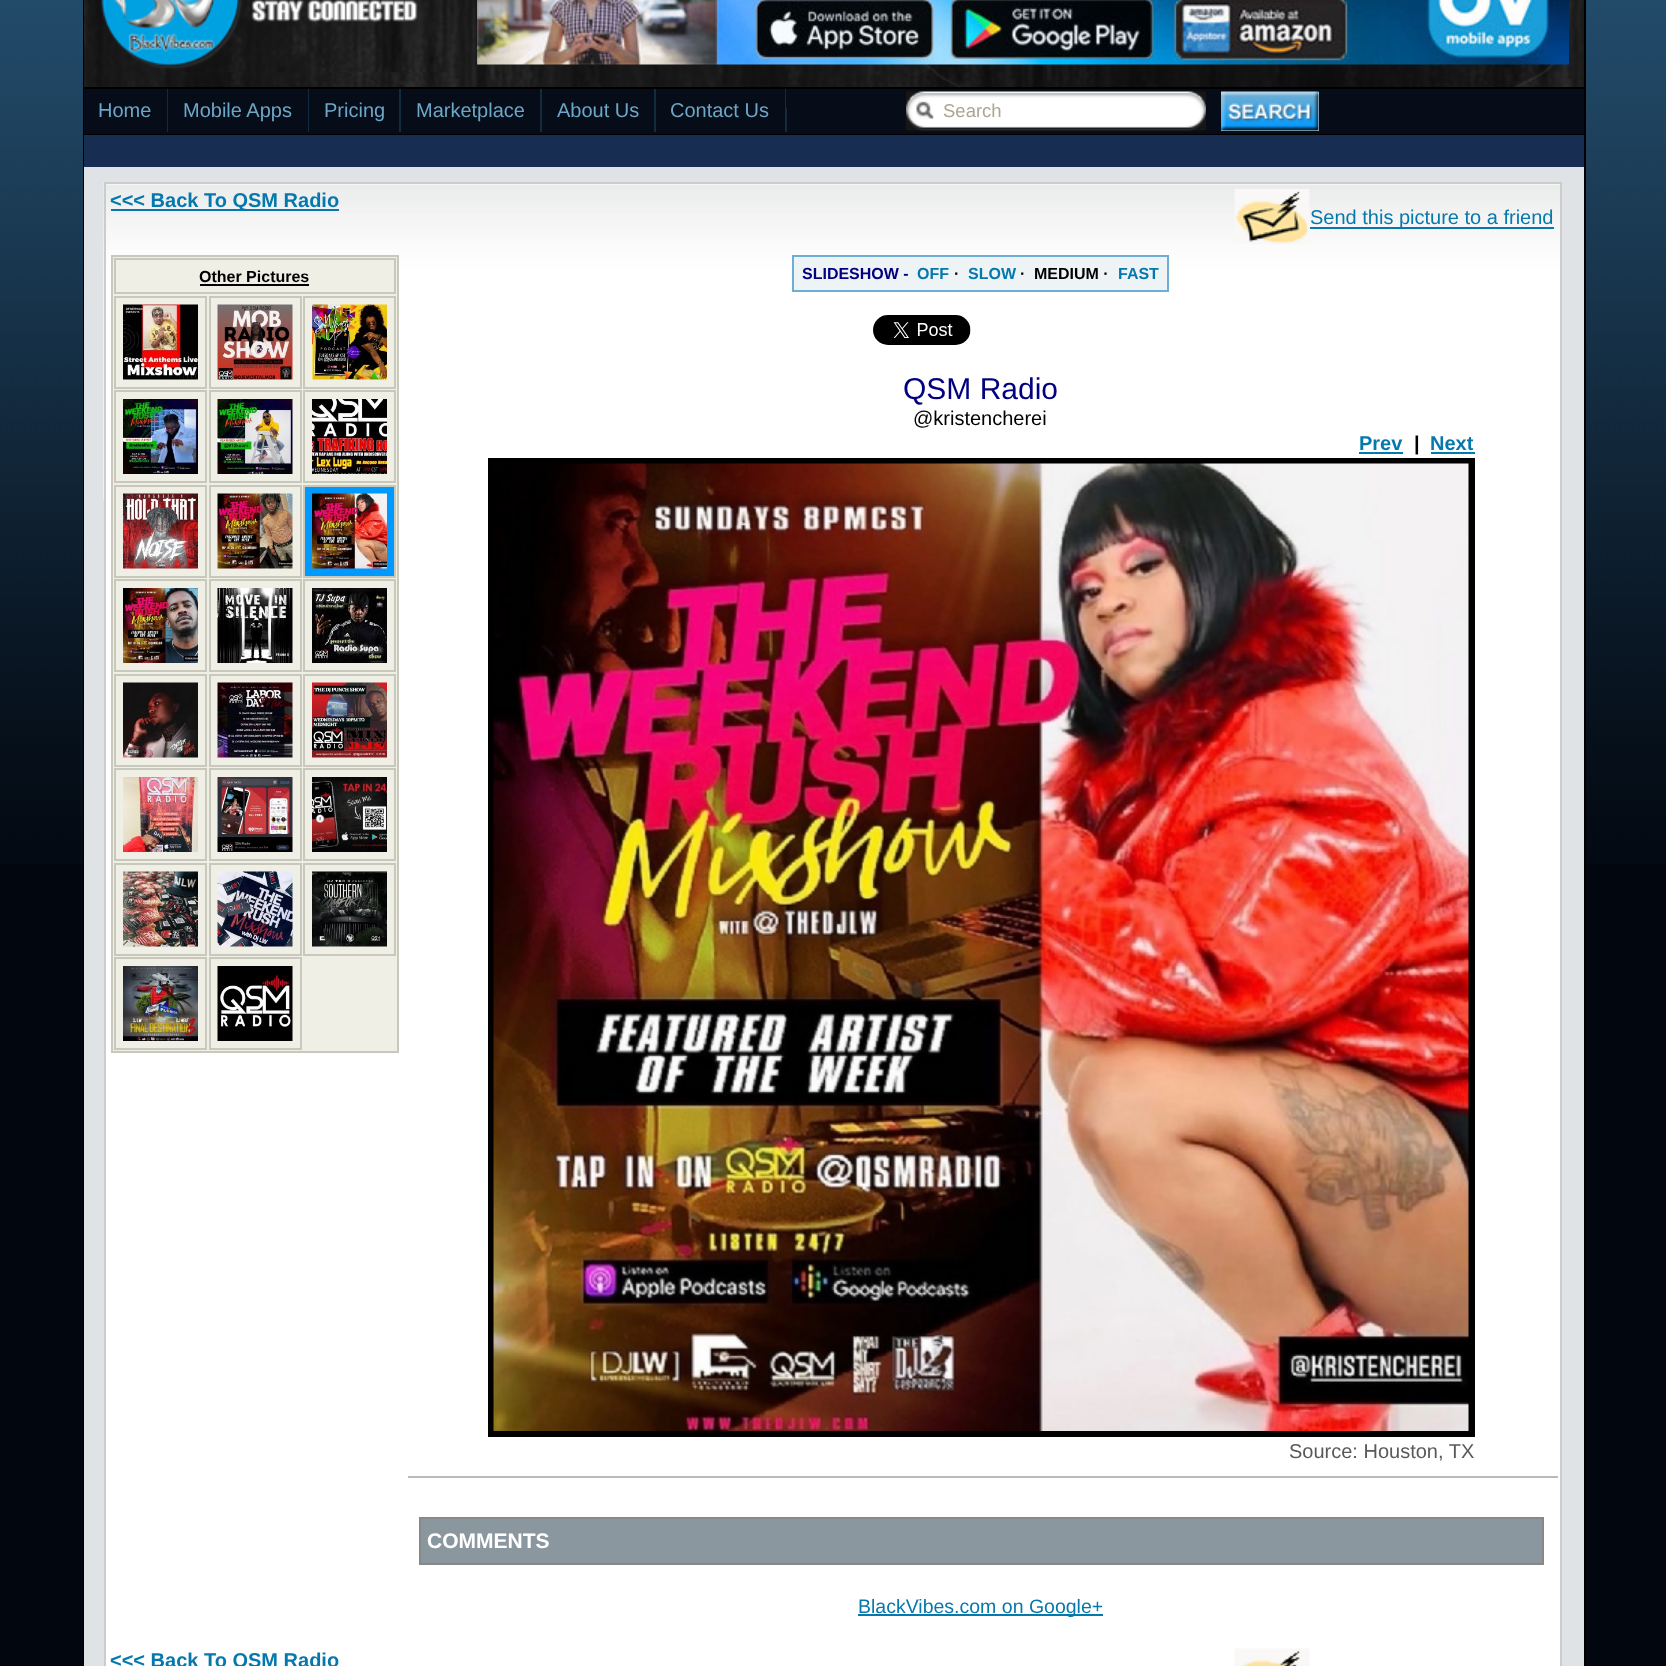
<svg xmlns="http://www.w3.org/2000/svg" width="1666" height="1666">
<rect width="100%" height="100%" fill="#02070f"/>
<image x="0" y="0" width="1666" height="864" href="media/1.png"/>
<rect x="1584" width="2" height="1666" fill="#000"/>
<rect x="83" width="1" height="1666" fill="#000"/>
<image x="84" y="0" width="1500" height="87" href="media/2.png"/>
<image x="100" y="0" width="360" height="72" href="media/3.png"/>
<image x="477" y="0" width="1092" height="65" href="media/4.png"/>
<rect x="84" y="87" width="1500" height="2" fill="#000"/>
<rect x="84" y="134" width="1500" height="1" fill="#000"/>
<rect x="84" y="89" width="1500" height="45" fill="#060d18"/>
<rect x="785" y="89" width="2" height="43" fill="#122b41"/>
<rect x="786" y="89" width="1" height="19" fill="#060d18"/>
<rect x="167" y="89" width="1" height="43" fill="#122b41"/>
<text x="98" y="117" style="font-family:Liberation Sans;font-size:20px;fill:#6ca7c7">Home</text>
<rect x="308" y="89" width="1" height="43" fill="#122b41"/>
<text x="183" y="117" style="font-family:Liberation Sans;font-size:20px;fill:#6ca7c7">Mobile Apps</text>
<rect x="399" y="89" width="2" height="43" fill="#122b41"/>
<text x="324" y="117" style="font-family:Liberation Sans;font-size:20px;fill:#6ca7c7">Pricing</text>
<rect x="540" y="89" width="2" height="43" fill="#122b41"/>
<text x="416" y="117" style="font-family:Liberation Sans;font-size:20px;fill:#6ca7c7">Marketplace</text>
<rect x="654" y="89" width="2" height="43" fill="#122b41"/>
<text x="557" y="117" style="font-family:Liberation Sans;font-size:20px;fill:#6ca7c7">About Us</text>
<text x="670" y="117" style="font-family:Liberation Sans;font-size:20px;fill:#6ca7c7">Contact Us</text>
<image x="906" y="91" width="300" height="40" href="media/5.png"/>
<text x="943" y="117" style="font-family:Liberation Sans;font-size:18.5px;fill:#aea592">Search</text>
<rect x="1221" y="92" width="98" height="39" fill="#efefef"/>
<image x="1221" y="91" width="98" height="40" href="media/6.png"/>
<rect x="84" y="135" width="1500" height="32" fill="#172e52"/>
<rect x="84" y="167" width="1500" height="1499" fill="#dfe3e6"/>
<rect x="106" y="499" width="1454" height="1167" fill="#fff"/>
<image x="103" y="183" width="1457" height="317" href="media/7.png"/>
<rect x="105" y="183" width="1456" height="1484" fill="none" stroke="#ccc" stroke-width="2"/>
<rect x="111" y="209" width="228" height="2" fill="#0578ad"/>
<text x="110" y="207" style="font-family:Liberation Sans;font-size:20px;font-weight:bold;fill:#0578ad">&lt;&lt;&lt; Back To QSM Radio</text>
<image x="1234" y="189" width="76" height="55" href="media/8.png"/>
<rect x="1310" y="227" width="244" height="2" fill="#0578ad"/>
<text x="1310" y="224" style="font-family:Liberation Sans;font-size:20px;fill:#0578ad">Send this picture to a friend</text>
<rect x="112" y="256" width="286" height="796" fill="#f0efe6" stroke="#c9c8bc" stroke-width="2"/>
<rect x="115" y="259" width="280" height="34" fill="none" stroke="#c9c8bc" stroke-width="2"/>
<text x="199" y="282" style="font-family:Liberation Sans;font-size:16px;font-weight:bold;fill:#000">Other Pictures</text>
<rect x="200" y="284" width="109" height="2" fill="#000"/>
<rect x="115" y="297" width="91" height="91" fill="none" stroke="#c9c8bc" stroke-width="2"/>
<image x="123" y="304" width="75" height="76" href="media/9.png"/>
<rect x="210" y="297" width="91" height="91" fill="none" stroke="#c9c8bc" stroke-width="2"/>
<image x="217" y="304" width="76" height="76" href="media/10.png"/>
<rect x="304" y="297" width="91" height="91" fill="none" stroke="#c9c8bc" stroke-width="2"/>
<image x="312" y="304" width="75" height="76" href="media/11.png"/>
<rect x="115" y="391" width="91" height="91" fill="none" stroke="#c9c8bc" stroke-width="2"/>
<image x="123" y="399" width="75" height="75" href="media/12.png"/>
<rect x="210" y="391" width="91" height="91" fill="none" stroke="#c9c8bc" stroke-width="2"/>
<image x="217" y="399" width="76" height="75" href="media/13.png"/>
<rect x="304" y="391" width="91" height="91" fill="none" stroke="#c9c8bc" stroke-width="2"/>
<image x="312" y="399" width="75" height="75" href="media/14.png"/>
<rect x="115" y="486" width="91" height="91" fill="none" stroke="#c9c8bc" stroke-width="2"/>
<image x="123" y="493" width="75" height="76" href="media/15.png"/>
<rect x="210" y="486" width="91" height="91" fill="none" stroke="#c9c8bc" stroke-width="2"/>
<image x="217" y="493" width="76" height="76" href="media/16.png"/>
<rect x="304" y="486" width="91" height="91" fill="#09f" stroke="#c9c8bc" stroke-width="2"/>
<image x="312" y="493" width="75" height="76" href="media/17.png"/>
<rect x="115" y="580" width="91" height="91" fill="none" stroke="#c9c8bc" stroke-width="2"/>
<image x="123" y="588" width="75" height="75" href="media/18.png"/>
<rect x="210" y="580" width="91" height="91" fill="none" stroke="#c9c8bc" stroke-width="2"/>
<image x="217" y="588" width="76" height="75" href="media/19.png"/>
<rect x="304" y="580" width="91" height="91" fill="none" stroke="#c9c8bc" stroke-width="2"/>
<image x="312" y="588" width="75" height="75" href="media/20.png"/>
<rect x="115" y="675" width="91" height="91" fill="none" stroke="#c9c8bc" stroke-width="2"/>
<image x="123" y="682" width="75" height="76" href="media/21.png"/>
<rect x="210" y="675" width="91" height="91" fill="none" stroke="#c9c8bc" stroke-width="2"/>
<image x="217" y="682" width="76" height="76" href="media/22.png"/>
<rect x="304" y="675" width="91" height="91" fill="none" stroke="#c9c8bc" stroke-width="2"/>
<image x="312" y="682" width="75" height="76" href="media/23.png"/>
<rect x="115" y="769" width="91" height="91" fill="none" stroke="#c9c8bc" stroke-width="2"/>
<image x="123" y="777" width="75" height="75" href="media/24.png"/>
<rect x="210" y="769" width="91" height="91" fill="none" stroke="#c9c8bc" stroke-width="2"/>
<image x="217" y="777" width="76" height="75" href="media/25.png"/>
<rect x="304" y="769" width="91" height="91" fill="none" stroke="#c9c8bc" stroke-width="2"/>
<image x="312" y="777" width="75" height="75" href="media/26.png"/>
<rect x="115" y="864" width="91" height="91" fill="none" stroke="#c9c8bc" stroke-width="2"/>
<image x="123" y="871" width="75" height="76" href="media/27.png"/>
<rect x="210" y="864" width="91" height="91" fill="none" stroke="#c9c8bc" stroke-width="2"/>
<image x="217" y="871" width="76" height="76" href="media/28.png"/>
<rect x="304" y="864" width="91" height="91" fill="none" stroke="#c9c8bc" stroke-width="2"/>
<image x="312" y="871" width="75" height="76" href="media/29.png"/>
<rect x="115" y="958" width="91" height="91" fill="none" stroke="#c9c8bc" stroke-width="2"/>
<image x="123" y="966" width="75" height="75" href="media/30.png"/>
<rect x="210" y="958" width="91" height="91" fill="none" stroke="#c9c8bc" stroke-width="2"/>
<image x="217" y="966" width="76" height="75" href="media/31.png"/>
<rect x="794" y="257" width="373" height="33" fill="#eef3f6"/>
<rect x="792" y="255" width="377" height="2" fill="#6daed5"/>
<rect x="1167" y="255" width="2" height="36" fill="#6daed5"/>
<rect x="792" y="290" width="377" height="2" fill="#6daed5"/>
<rect x="792" y="255" width="2" height="36" fill="#6daed5"/>
<text x="802" y="279" style="font-family:Liberation Sans;font-size:16px;font-weight:bold;fill:#000080">SLIDESHOW -</text>
<text x="917" y="279" style="font-family:Liberation Sans;font-size:16px;font-weight:bold;fill:#0578ad">OFF</text>
<text x="954" y="279" style="font-family:Liberation Sans;font-size:16px;font-weight:bold;fill:#000">·</text>
<text x="968" y="279" style="font-family:Liberation Sans;font-size:16px;font-weight:bold;fill:#0578ad">SLOW</text>
<text x="1020" y="279" style="font-family:Liberation Sans;font-size:16px;font-weight:bold;fill:#000">·</text>
<text x="1034" y="279" style="font-family:Liberation Sans;font-size:16px;font-weight:bold;fill:#000">MEDIUM ·</text>
<text x="1118" y="279" style="font-family:Liberation Sans;font-size:16px;font-weight:bold;fill:#0578ad">FAST</text>
<image x="873" y="315" width="98" height="30" href="media/32.png"/>
<text x="903" y="399" style="font-family:Liberation Sans;font-size:30px;fill:#000080">QSM Radio</text>
<text x="913" y="425" style="font-family:Liberation Sans;font-size:20px;fill:#000">@kristencherei</text>
<text x="1359" y="450" style="font-family:Liberation Sans;font-size:20px;font-weight:bold;fill:#0578ad">Prev</text>
<rect x="1359" y="452" width="44" height="2" fill="#0578ad"/>
<text x="1414" y="450" style="font-family:Liberation Sans;font-size:20px;font-weight:bold;fill:#000">|</text>
<text x="1430" y="450" style="font-family:Liberation Sans;font-size:20px;font-weight:bold;fill:#0578ad">Next</text>
<rect x="1431" y="452" width="44" height="2" fill="#0578ad"/>
<rect x="488" y="458" width="987" height="979" fill="#000"/>
<image x="493" y="463" width="976" height="968" href="media/33.png"/>
<text x="1289" y="1458" style="font-family:Liberation Sans;font-size:20px;fill:#595959">Source: Houston, TX</text>
<rect x="408" y="1476" width="1150" height="2" fill="#bababa"/>
<rect x="420" y="1518" width="1123" height="46" fill="#8b979f" stroke="#888" stroke-width="2"/>
<text x="427" y="1548" style="font-family:Liberation Sans;font-size:21px;font-weight:bold;fill:#fff">COMMENTS</text>
<rect x="858" y="1614" width="245" height="2" fill="#0578ad"/>
<text x="858" y="1613" style="font-family:Liberation Sans;font-size:19.5px;fill:#0578ad">BlackVibes.com on Google+</text>
<text x="110" y="1667" style="font-family:Liberation Sans;font-size:20px;font-weight:bold;fill:#0578ad">&lt;&lt;&lt; Back To QSM Radio</text>
<image x="1234" y="1648" width="76" height="18" href="media/34.png"/>
</svg>
